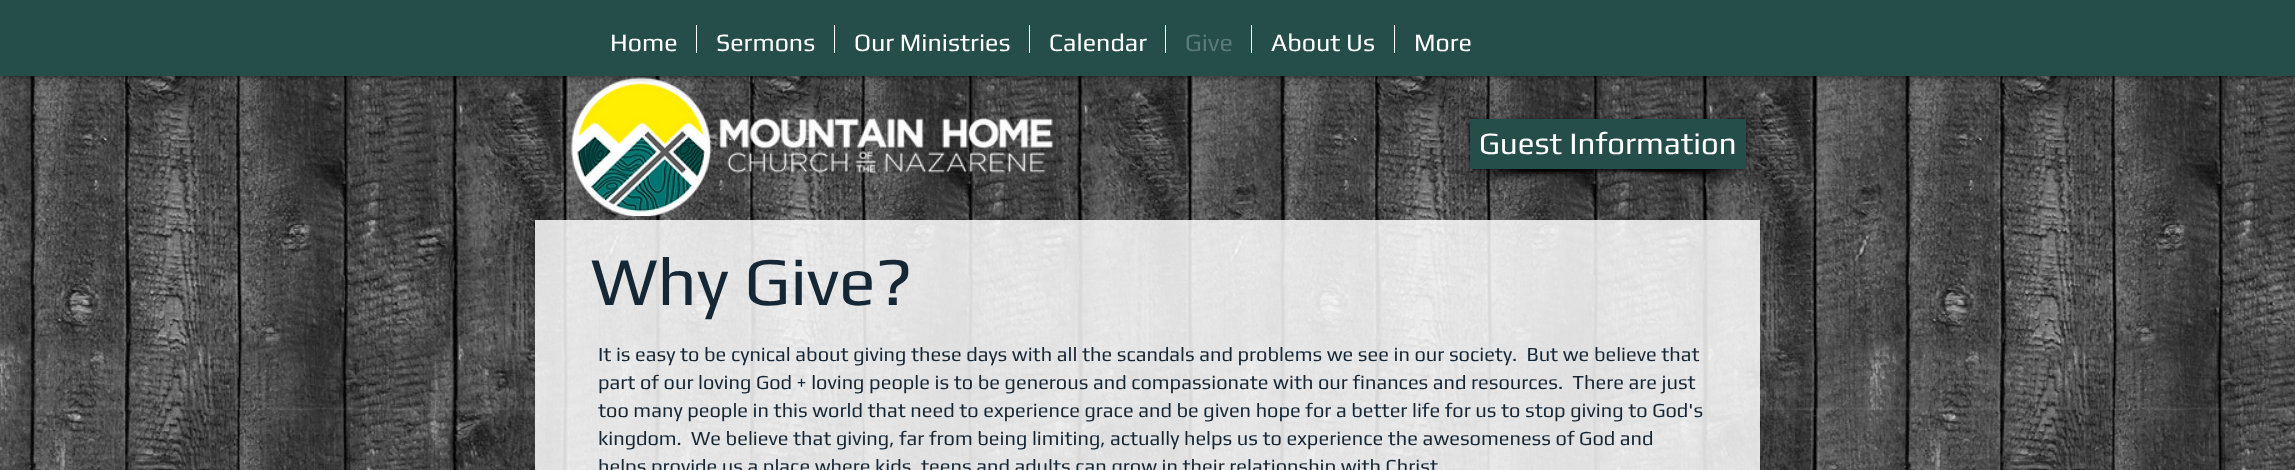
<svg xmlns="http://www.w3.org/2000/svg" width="2295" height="470">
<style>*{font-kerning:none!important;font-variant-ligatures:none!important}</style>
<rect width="100%" height="100%" fill="#fff"/>
<image x="0" y="76" width="2295" height="394" href="media/4.png"/>
<image x="571" y="77" width="482" height="140" href="media/1.png"/>
<rect width="2295" height="76" fill="#000000b3" filter="blur(3px)"/>
<rect width="2295" height="76" fill="#254e4a"/>
<text x="610" y="51" style="font-family:Play;font-size:25px;fill:#fff">Home</text>
<rect x="696" y="25" width="1" height="28" fill="#fff"/>
<text x="716" y="51" style="font-family:Play;font-size:25px;fill:#fff">Sermons</text>
<rect x="834" y="25" width="1" height="28" fill="#fff"/>
<text x="854" y="51" style="font-family:Play;font-size:25px;fill:#fff">Our Ministries</text>
<rect x="1029" y="25" width="1" height="28" fill="#fff"/>
<text x="1049" y="51" style="font-family:Play;font-size:25px;fill:#fff">Calendar</text>
<rect x="1165" y="25" width="1" height="28" fill="#fff"/>
<text x="1185" y="51" style="font-family:Play;font-size:25px;fill:#5a7a77">Give</text>
<rect x="1251" y="25" width="1" height="28" fill="#fff"/>
<text x="1271" y="51" style="font-family:Play;font-size:25px;fill:#fff">About Us</text>
<rect x="1394" y="25" width="1" height="28" fill="#fff"/>
<text x="1414" y="51" style="font-family:Play;font-size:25px;fill:#fff">More</text>
<image x="1465" y="169" width="165" height="19" href="media/2.png"/>
<image x="1597" y="169" width="154" height="20" href="media/3.png"/>
<rect x="1470" y="120" width="276" height="50" fill="#00000099" filter="blur(2.5px)"/>
<rect x="1470" y="119" width="276" height="50" fill="#254e4a"/>
<text x="1479" y="154" style="font-family:Play;font-size:31.25px;fill:#fff">Guest Information</text>
<rect x="535" y="220" width="1225" height="250" fill="#ffffffd9"/>
<text x="591" y="305" style="font-family:Play;font-size:68.75px;fill:#152635">Why Give?</text>
<text x="598" y="361" style="font-family:Play;font-size:20px;fill:#152635" xml:space="preserve">It is easy to be cynical about giving these days with all the scandals and problems we see in our society.  But we believe that</text>
<text x="598" y="389" style="font-family:Play;font-size:20px;fill:#152635" xml:space="preserve">part of our loving God + loving people is to be generous and compassionate with our finances and resources.  There are just</text>
<text x="598" y="417" style="font-family:Play;font-size:20px;fill:#152635">too many people in this world that need to experience grace and be given hope for a better life for us to stop giving to God's</text>
<text x="598" y="445" style="font-family:Play;font-size:20px;fill:#152635" xml:space="preserve">kingdom.  We believe that giving, far from being limiting, actually helps us to experience the awesomeness of God and</text>
<text x="598" y="473" style="font-family:Play;font-size:20px;fill:#152635">helps provide us a place where kids, teens and adults can grow in their relationship with Christ</text>
</svg>
